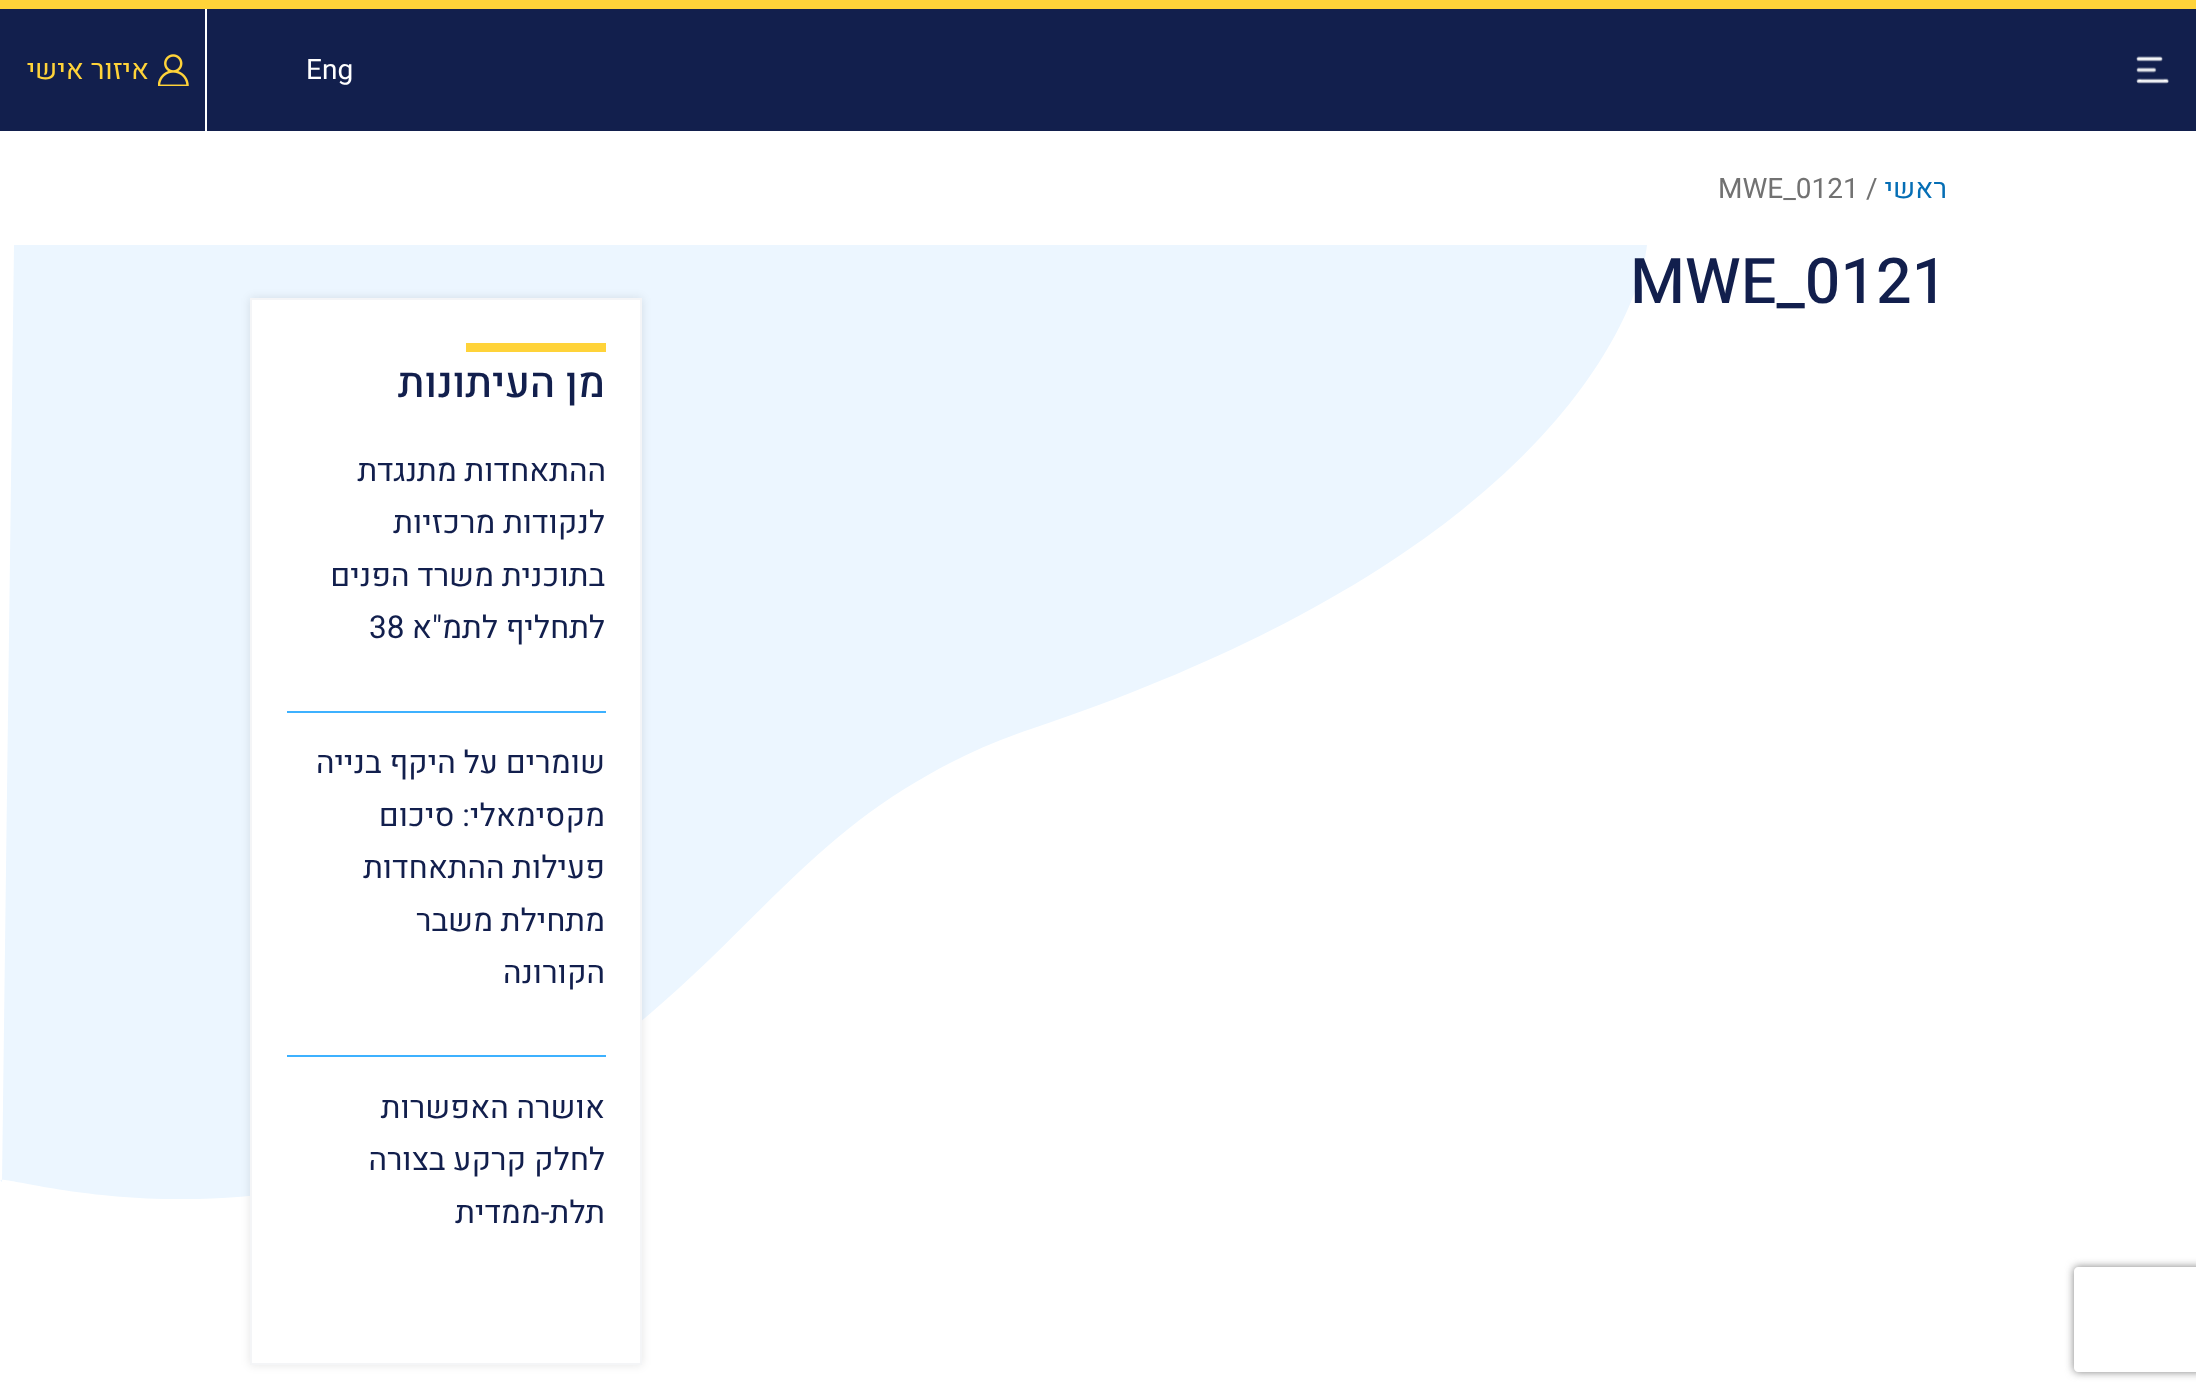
<svg xmlns="http://www.w3.org/2000/svg" width="2196" height="1396">
<defs>
<clipPath id="clip1"><rect y="245" width="1647" height="954"/></clipPath>
<clipPath id="clip2"><path d="M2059 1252h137v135h-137zm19 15h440c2 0 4 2 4 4v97c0 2-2 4-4 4h-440c-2 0-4-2-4-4v-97c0-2 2-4 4-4z" clip-rule="evenodd"/></clipPath>
</defs>
<rect width="100%" height="100%" fill="#fff"/>
<rect y="9" width="2196" height="122" fill="#121f4d"/>
<rect width="2196" height="9" fill="#ffd339"/>
<image x="2136" y="56" width="33" height="28" href="media/1.png"/>
<text x="306" y="79" style="font-family:Heebo;font-size:28px;fill:#fff">Eng</text>
<rect x="205" y="9" width="2" height="122" fill="#fff"/>
<image x="158" y="54" width="31" height="32" href="media/2.png"/>
<text x="149" y="79" style="font-family:Heebo;font-size:28px;direction:rtl;fill:#ffd339">איזור אישי</text>
<text x="1947" y="198" style="font-family:Heebo;font-size:28px;direction:rtl;fill:#056eb5">ראשי</text>
<text x="1866" y="198" style="font-family:Heebo;font-size:28px;fill:#727272">/</text>
<text x="1718" y="198" style="font-family:Heebo;font-size:28px;fill:#727272">MWE_0121</text>
<g clip-path="url(#clip1)">
<path d="M1647 245c0 0-19 284-616 484c-36 12-70 27-103 46c-160 89-213 224-432 345c-259 144-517 44-494 62l12-937z" fill="#ecf6ff"/>
</g>
<text x="1630" y="303" style="font-family:Heebo;font-size:63px;font-weight:500;fill:#121f4d">MWE_0121</text>
<rect x="250" y="298" width="392" height="1067" fill="#0000001a" filter="blur(5px)"/>
<rect x="251" y="299" width="390" height="1065" fill="#fff" stroke="#f4f5f7" stroke-width="2"/>
<rect x="466" y="343" width="140" height="9" fill="#ffd339"/>
<text x="605" y="397" style="font-family:Heebo;font-size:42px;font-weight:500;direction:rtl;fill:#121f4d">מן העיתונות</text>
<rect x="287" y="711" width="319" height="2" fill="#3db1ff"/>
<text x="606" y="481" style="font-family:Heebo;font-size:31.5px;direction:rtl;fill:#121f4d">ההתאחדות מתנגדת</text>
<text x="605" y="533" style="font-family:Heebo;font-size:31.5px;direction:rtl;fill:#121f4d">לנקודות מרכזיות</text>
<text x="605" y="586" style="font-family:Heebo;font-size:31.5px;direction:rtl;fill:#121f4d">בתוכנית משרד הפנים</text>
<text x="605" y="638" style="font-family:Heebo;font-size:31.5px;direction:rtl;fill:#121f4d">לתחליף לתמ"א</text>
<text x="369" y="638" style="font-family:Heebo;font-size:31.5px;fill:#121f4d">38</text>
<rect x="287" y="1055" width="319" height="2" fill="#3db1ff"/>
<text x="605" y="773" style="font-family:Heebo;font-size:31.5px;direction:rtl;fill:#121f4d">שומרים על היקף בנייה</text>
<text x="605" y="826" style="font-family:Heebo;font-size:31.5px;direction:rtl;fill:#121f4d">מקסימאלי: סיכום</text>
<text x="605" y="878" style="font-family:Heebo;font-size:31.5px;direction:rtl;fill:#121f4d">פעילות ההתאחדות</text>
<text x="605" y="931" style="font-family:Heebo;font-size:31.5px;direction:rtl;fill:#121f4d">מתחילת משבר</text>
<text x="605" y="983" style="font-family:Heebo;font-size:31.5px;direction:rtl;fill:#121f4d">הקורונה</text>
<text x="605" y="1118" style="font-family:Heebo;font-size:31.5px;direction:rtl;fill:#121f4d">אושרה האפשרות</text>
<text x="605" y="1170" style="font-family:Heebo;font-size:31.5px;direction:rtl;fill:#121f4d">לחלק קרקע בצורה</text>
<text x="605" y="1223" style="font-family:Heebo;font-size:31.5px;direction:rtl;fill:#121f4d">תלת-ממדית</text>
<g clip-path="url(#clip2)">
<rect x="2074" y="1267" width="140" height="105" rx="4" fill="#808080" filter="blur(4.5px)"/>
</g>
</svg>
